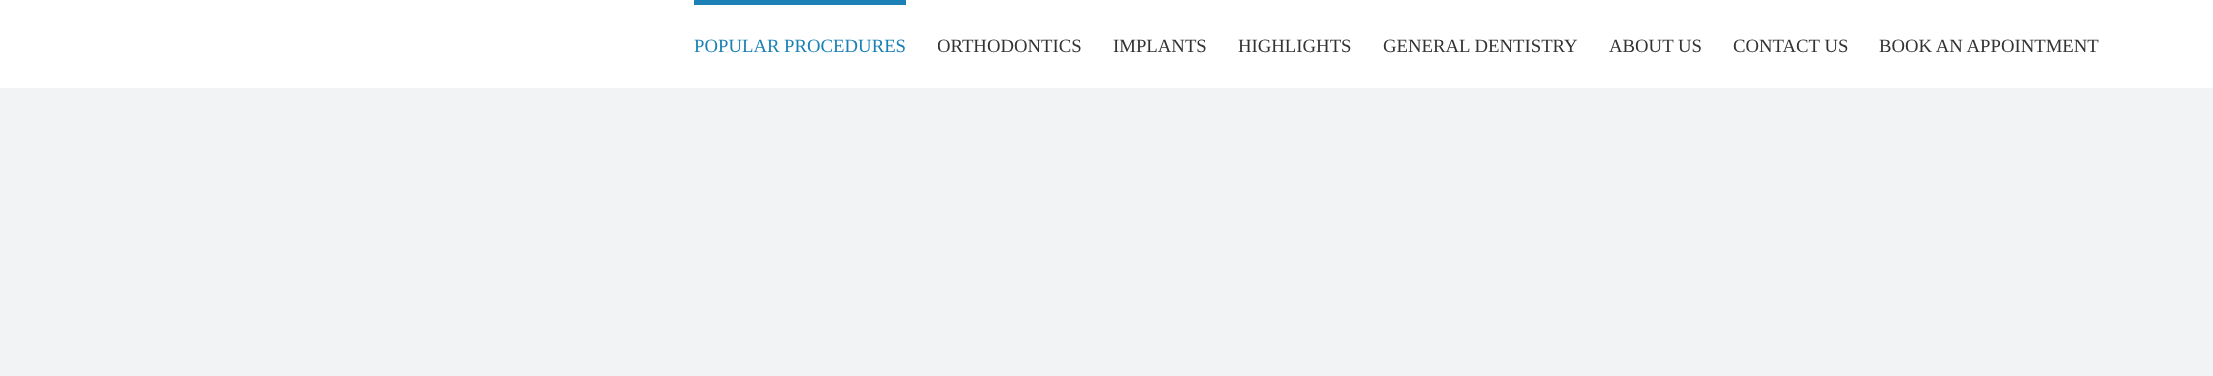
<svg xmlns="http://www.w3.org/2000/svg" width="2213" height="376">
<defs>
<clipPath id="clip1"><rect x="938" width="175" height="88"/></clipPath>
</defs>
<rect width="100%" height="100%" fill="#fff"/>
<rect x="694" width="212" height="5" fill="#1a80b6"/>
<text x="694" y="52" style="font-family:Liberation Serif;font-size:18.75px;fill:#1a80b6">POPULAR PROCEDURES</text>
<g clip-path="url(#clip1)">
<text x="937" y="52" style="font-family:Liberation Serif;font-size:18.75px;fill:#333">ORTHODONTICS</text>
</g>
<text x="1113" y="52" style="font-family:Liberation Serif;font-size:18.75px;fill:#333">IMPLANTS</text>
<text x="1238" y="52" style="font-family:Liberation Serif;font-size:18.75px;fill:#333">HIGHLIGHTS</text>
<text x="1383" y="52" style="font-family:Liberation Serif;font-size:18.75px;fill:#333">GENERAL DENTISTRY</text>
<text x="1609" y="52" style="font-family:Liberation Serif;font-size:18.75px;fill:#333">ABOUT US</text>
<text x="1733" y="52" style="font-family:Liberation Serif;font-size:18.75px;fill:#333">CONTACT US</text>
<text x="1879" y="52" style="font-family:Liberation Serif;font-size:18.75px;fill:#333">BOOK AN APPOINTMENT</text>
<rect y="88" width="2213" height="288" fill="#f2f3f5"/>
</svg>
